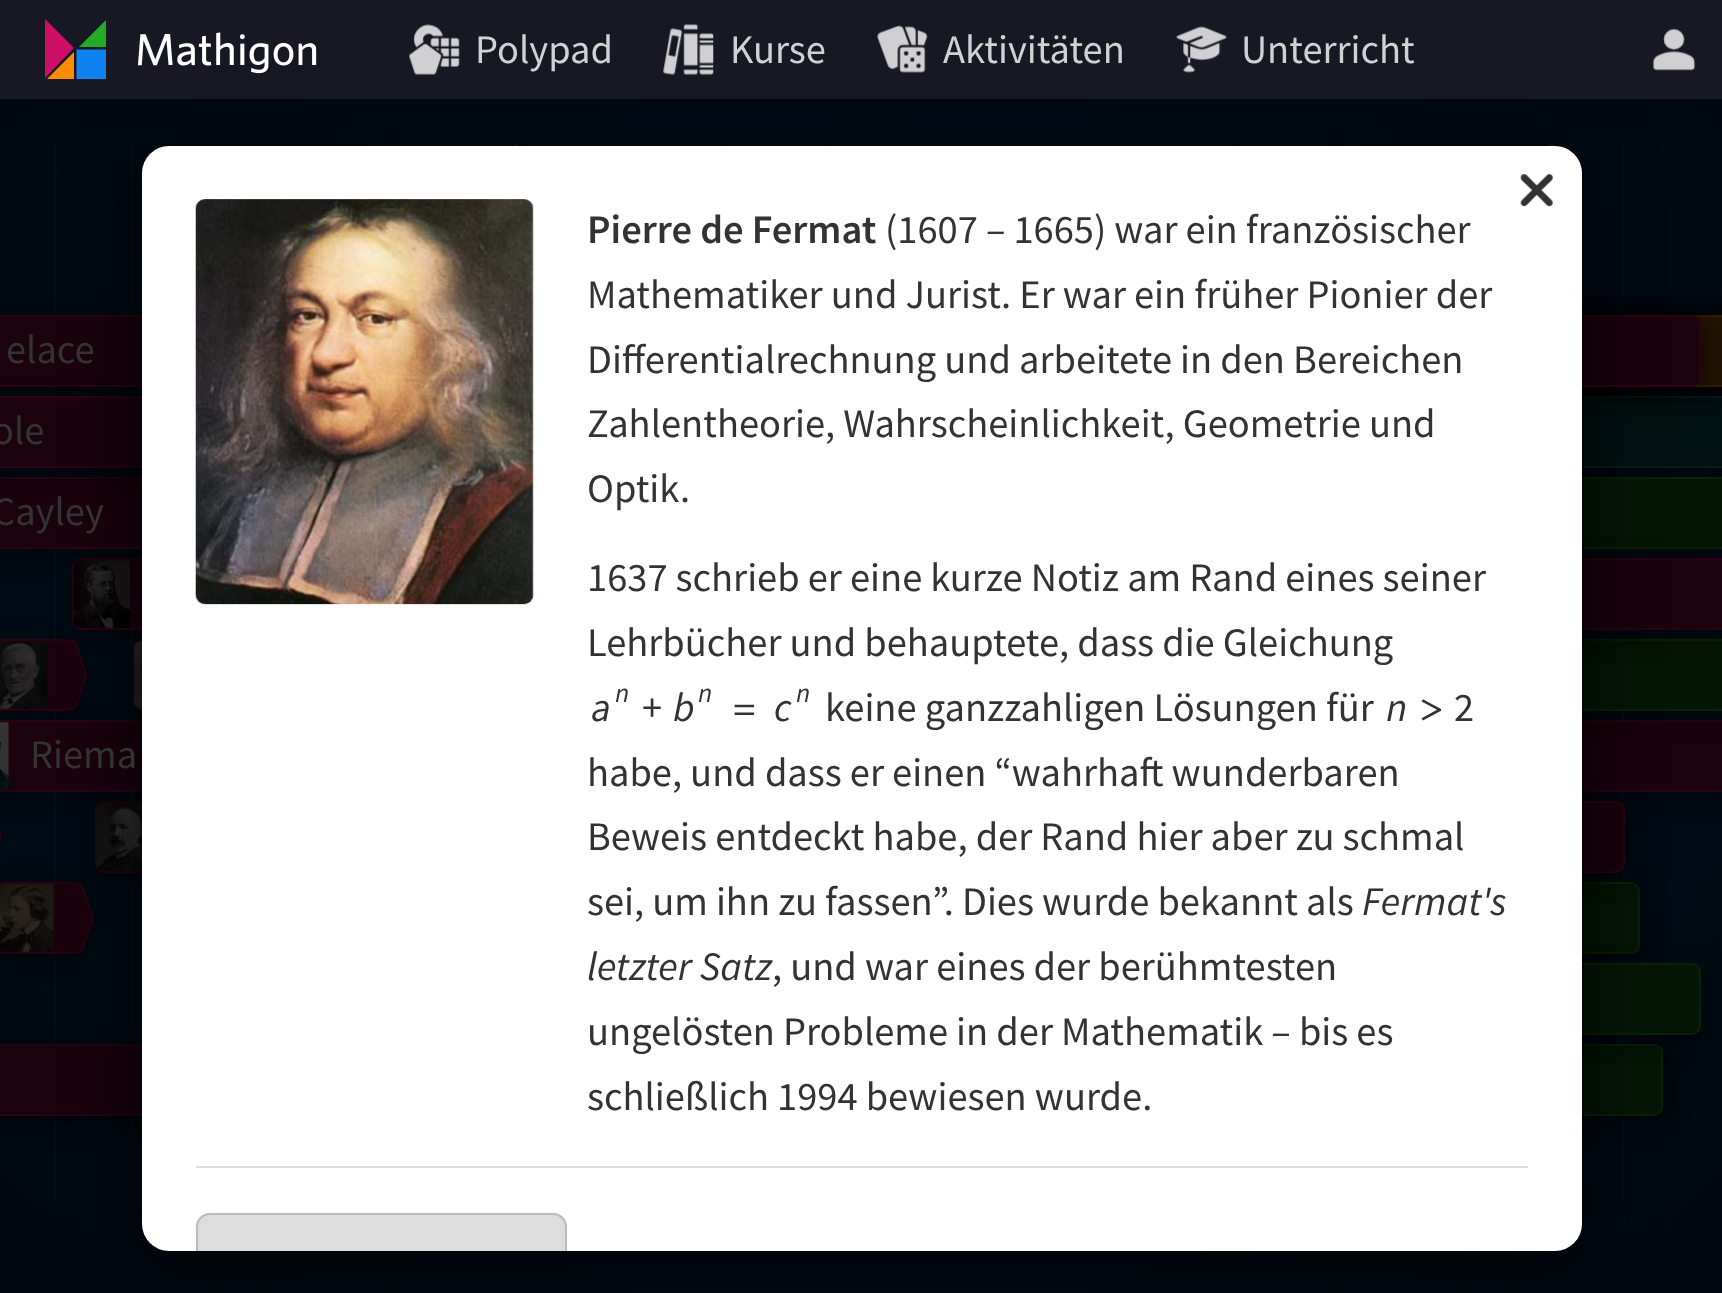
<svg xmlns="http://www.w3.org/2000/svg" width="1722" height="1293">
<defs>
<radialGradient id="g1" gradientUnits="userSpaceOnUse" cx="0" cy="0" r="1" gradientTransform="matrix(1219 0 0 915 862 647)"><stop offset="0" stop-color="#021222"/><stop offset="1" stop-color="#01080f"/></radialGradient>
<radialGradient id="g2" gradientUnits="userSpaceOnUse" cx="0" cy="0" r="1" gradientTransform="matrix(1219 0 0 915 862 647)"><stop offset="0" stop-color="#071524"/><stop offset="1" stop-color="#060c12"/></radialGradient>
<radialGradient id="g3" gradientUnits="userSpaceOnUse" cx="0" cy="0" r="1" gradientTransform="matrix(1219 0 0 915 862 647)"><stop offset="0" stop-color="#0e1a26"/><stop offset="1" stop-color="#0d1318"/></radialGradient>
<clipPath id="clip1"><rect x="142" y="146" width="1440" height="1105"/></clipPath>
</defs>
<rect width="100%" height="100%" fill="#fff"/>
<rect y="99" width="1722" height="1194" fill="url(#g1)"/>
<rect x="1622" y="144" width="2" height="1060" fill="url(#g2)"/>
<rect x="1548" y="144" width="5" height="2" fill="url(#g3)"/>
<rect x="1445" y="144" width="2" height="2" fill="url(#g2)"/>
<rect x="1341" y="144" width="2" height="2" fill="url(#g2)"/>
<rect x="360" y="144" width="2" height="2" fill="url(#g2)"/>
<rect x="284" y="144" width="2" height="2" fill="url(#g2)"/>
<rect x="207" y="144" width="2" height="2" fill="url(#g2)"/>
<rect x="131" y="144" width="2" height="1060" fill="url(#g2)"/>
<rect x="54" y="144" width="2" height="1060" fill="url(#g2)"/>
<rect width="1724" height="99" fill="#00000040" filter="blur(13.5px)"/>
<rect x="437" y="144" width="2" height="2" fill="#3333331a"/>
<rect x="513" y="144" width="5" height="2" fill="#33333340"/>
<rect x="617" y="144" width="2" height="2" fill="#3333331a"/>
<rect x="720" y="144" width="2" height="2" fill="#3333331a"/>
<rect x="824" y="144" width="2" height="2" fill="#3333331a"/>
<rect x="927" y="144" width="2" height="2" fill="#3333331a"/>
<rect x="1031" y="144" width="2" height="2" fill="#3333331a"/>
<rect x="1134" y="144" width="2" height="2" fill="#3333331a"/>
<rect x="1238" y="144" width="2" height="2" fill="#3333331a"/>
<rect x="1316" y="320" width="367" height="72" rx="9" fill="#00000080" filter="blur(11px)"/>
<rect x="1339" y="320" width="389" height="72" rx="9" fill="#00000080" filter="blur(11px)"/>
<rect x="1391" y="320" width="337" height="72" rx="9" fill="#00000080" filter="blur(11px)"/>
<rect x="1296" y="401" width="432" height="72" rx="9" fill="#00000080" filter="blur(11px)"/>
<rect x="1582" y="398" width="140" height="68" fill="#001112"/>
<path d="M1300 396h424v72h-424c-4 0-8-4-8-9v-54c0-5 4-9 8-9zm0 2h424v68h-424c-3 0-6-3-6-7v-54c0-4 3-7 6-7z" fill="#002021" fill-rule="evenodd"/>
<rect x="1069" y="320" width="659" height="72" rx="9" fill="#00000080" filter="blur(11px)"/>
<rect x="1089" y="320" width="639" height="72" rx="9" fill="#00000080" filter="blur(11px)"/>
<rect x="1697" y="317" width="25" height="68" fill="#231400"/>
<path d="M1062 315h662v72h-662c-5 0-9-4-9-9v-54c0-5 4-9 9-9zm0 2h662v68h-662c-4 0-7-3-7-7v-54c0-4 3-7 7-7z" fill="#331c00" fill-rule="evenodd"/>
<rect x="902" y="320" width="804" height="72" rx="9" fill="#00000080" filter="blur(11px)"/>
<rect x="899" y="316" width="801" height="70" rx="8" fill="#1b020d" stroke="#290314" stroke-width="2"/>
<rect x="-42" y="320" width="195" height="72" rx="9" fill="#00000080" filter="blur(11px)"/>
<path d="M0 315h140c5 0 9 4 9 9v54c0 5-4 9-9 9h-140z" fill="#1b020d"/>
<rect x="-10" y="316" width="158" height="70" rx="8" fill="none" stroke="#290314" stroke-width="2"/>
<rect x="137" y="644" width="315" height="72" rx="9" fill="#00000080" filter="blur(11px)"/>
<rect x="134" y="640" width="313" height="70" rx="8" fill="#1b020d" stroke="#290314" stroke-width="2"/>
<image x="134" y="641" width="8" height="68" href="media/10.png"/>
<rect x="77" y="563" width="436" height="72" rx="9" fill="#00000080" filter="blur(11px)"/>
<rect x="73" y="559" width="435" height="70" rx="8" fill="#1b020d" stroke="#290314" stroke-width="2"/>
<image x="73" y="560" width="57" height="68" href="media/7.png"/>
<rect x="-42" y="482" width="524" height="72" rx="9" fill="#00000080" filter="blur(11px)"/>
<rect y="479" width="142" height="68" fill="#1b020d"/>
<rect x="-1" y="478" width="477" height="70" fill="none" stroke="#290314" stroke-width="2"/>
<rect x="-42" y="401" width="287" height="72" rx="9" fill="#00000080" filter="blur(11px)"/>
<rect y="398" width="142" height="68" fill="#1b020d"/>
<rect x="-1" y="397" width="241" height="70" fill="none" stroke="#290314" stroke-width="2"/>
<rect x="954" y="482" width="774" height="72" rx="9" fill="#00000080" filter="blur(11px)"/>
<rect x="1582" y="479" width="140" height="68" fill="#041505"/>
<path d="M958 477h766v72h-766c-4 0-8-4-8-9v-54c0-5 4-9 8-9zm0 2h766v68h-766c-3 0-6-3-6-7v-54c0-4 3-7 6-7z" fill="#072207" fill-rule="evenodd"/>
<rect x="1204" y="725" width="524" height="72" rx="9" fill="#00000080" filter="blur(11px)"/>
<rect x="1582" y="722" width="140" height="68" fill="#1b020d"/>
<path d="M1208 720h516v72h-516c-5 0-9-4-9-9v-54c0-5 4-9 9-9zm0 2h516v68h-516c-3 0-6-3-6-7v-54c0-4 3-7 6-7z" fill="#290314" fill-rule="evenodd"/>
<rect x="893" y="644" width="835" height="72" rx="9" fill="#00000080" filter="blur(11px)"/>
<rect x="1582" y="641" width="140" height="68" fill="#041505"/>
<path d="M898 639h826v72h-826c-5 0-9-4-9-9v-54c0-5 4-9 9-9zm0 2h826v68h-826c-4 0-7-3-7-7v-54c0-4 3-7 7-7z" fill="#072207" fill-rule="evenodd"/>
<rect x="842" y="563" width="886" height="72" rx="9" fill="#00000080" filter="blur(11px)"/>
<rect x="1582" y="560" width="140" height="68" fill="#1b020d"/>
<path d="M846 558h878v72h-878c-5 0-9-4-9-9v-54c0-5 4-9 9-9zm0 2h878v68h-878c-4 0-7-3-7-7v-54c0-4 3-7 7-7z" fill="#290314" fill-rule="evenodd"/>
<rect x="-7" y="644" width="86" height="72" rx="9" fill="#00000080" filter="blur(11px)"/>
<path d="M0 639h65c5 0 9 4 9 9v54c0 5-4 9-9 9h-65z" fill="#1b020d"/>
<rect x="-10" y="640" width="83" height="70" rx="8" fill="none" stroke="#290314" stroke-width="2"/>
<image x="0" y="641" width="47" height="68" href="media/8.png"/>
<image x="69" y="639" width="19" height="72" href="media/9.png"/>
<rect x="99" y="806" width="608" height="72" rx="9" fill="#00000080" filter="blur(11px)"/>
<rect x="96" y="802" width="605" height="70" rx="8" fill="none" stroke="#290314" stroke-width="2"/>
<image x="96" y="803" width="46" height="68" href="media/13.png"/>
<rect x="-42" y="725" width="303" height="72" rx="9" fill="#00000080" filter="blur(11px)"/>
<rect y="722" width="142" height="68" fill="#1b020d"/>
<rect x="-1" y="721" width="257" height="70" fill="none" stroke="#290314" stroke-width="2"/>
<rect x="997" y="887" width="648" height="72" rx="9" fill="#00000080" filter="blur(11px)"/>
<rect x="993" y="883" width="646" height="70" rx="8" fill="#041505" stroke="#072207" stroke-width="2"/>
<rect x="770" y="806" width="859" height="72" rx="9" fill="#00000080" filter="blur(11px)"/>
<rect x="766" y="802" width="858" height="70" rx="8" fill="#1b020d" stroke="#290314" stroke-width="2"/>
<rect y="887" width="86" height="72" rx="9" fill="#00000080" filter="blur(11px)"/>
<rect x="-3" y="883" width="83" height="70" rx="8" fill="#1b020d" stroke="#290314" stroke-width="2"/>
<image x="0" y="884" width="54" height="68" href="media/14.png"/>
<image x="76" y="882" width="19" height="72" href="media/15.png"/>
<rect x="-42" y="1049" width="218" height="72" rx="9" fill="#00000080" filter="blur(11px)"/>
<rect y="1046" width="142" height="68" fill="#1b020d"/>
<rect x="-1" y="1045" width="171" height="70" fill="none" stroke="#290314" stroke-width="2"/>
<rect x="810" y="1049" width="857" height="72" rx="9" fill="#00000080" filter="blur(11px)"/>
<rect x="807" y="1045" width="855" height="70" rx="8" fill="#041505" stroke="#072207" stroke-width="2"/>
<rect x="707" y="968" width="999" height="72" rx="9" fill="#00000080" filter="blur(11px)"/>
<rect x="703" y="964" width="997" height="70" rx="8" fill="#041505" stroke="#072207" stroke-width="2"/>
<rect x="142" y="160" width="1440" height="1105" rx="27" fill="#000000cc" filter="blur(36px)"/>
<rect width="1722" height="99" fill="#181824"/>
<path d="M74 79v-27l-27 27z" fill="#fd8c00"/>
<path d="M45 19v59l29-30z" fill="#cd0e66"/>
<path d="M106 20l-27 27h27" fill="#22ab24"/>
<path d="M106 49.5h-29.5v29.5h29.5" fill="#0f82f2"/>
<image x="138" y="32" width="179" height="42" href="media/1.png"/>
<image x="409" y="24" width="51" height="51" href="media/2.png"/>
<text x="475" y="63" style="font-family:Source Sans Pro;font-size:40.5px;fill:#d1d1d3">Polypad</text>
<image x="663" y="24" width="51" height="51" href="media/3.png"/>
<text x="730" y="63" style="font-family:Source Sans Pro;font-size:40.5px;fill:#d1d1d3">Kurse</text>
<image x="877" y="25" width="51" height="48" href="media/4.png"/>
<text x="943" y="63" style="font-family:Source Sans Pro;font-size:40.5px;fill:#d1d1d3">Aktivitäten</text>
<image x="1176" y="26" width="51" height="47" href="media/5.png"/>
<text x="1241" y="63" style="font-family:Source Sans Pro;font-size:40.5px;fill:#d1d1d3">Unterricht</text>
<image x="1653" y="28" width="43" height="43" href="media/6.png"/>
<text x="6" y="363" style="font-family:Source Sans Pro;font-size:40.5px;fill:#333">elace</text>
<text x="-8" y="444" style="font-family:Source Sans Pro;font-size:40.5px;fill:#333">ole</text>
<text x="-8" y="525" style="font-family:Source Sans Pro;font-size:40.5px;fill:#333">Cayley</text>
<image x="0" y="722" width="9" height="68" href="media/11.png"/>
<text x="30" y="768" style="font-family:Source Sans Pro;font-size:40.5px;fill:#333">Riema</text>
<image x="0" y="830" width="3" height="14" href="media/12.png"/>
<rect x="142" y="146" width="1440" height="1105" rx="27" fill="#fff"/>
<image x="1520" y="174" width="33" height="33" href="media/16.png"/>
<image x="195" y="199" width="339" height="406" href="media/17.png"/>
<text x="587" y="243" style="font-family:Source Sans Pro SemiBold;font-size:40.5px;font-weight:600;fill:#333">Pierre de Fermat</text>
<text x="885" y="243" style="font-family:Source Sans Pro;font-size:40.5px;fill:#333">(1607 – 1665) war ein französischer</text>
<text x="587" y="308" style="font-family:Source Sans Pro;font-size:40.5px;fill:#333">Mathematiker und Jurist. Er war ein früher Pionier der</text>
<text x="587" y="373" style="font-family:Source Sans Pro;font-size:40.5px;fill:#333">Differentialrechnung und arbeitete in den Bereichen</text>
<text x="587" y="437" style="font-family:Source Sans Pro;font-size:40.5px;fill:#333">Zahlentheorie, Wahrscheinlichkeit, Geometrie und</text>
<text x="587" y="502" style="font-family:Source Sans Pro;font-size:40.5px;fill:#333">Optik.</text>
<text x="587" y="591" style="font-family:Source Sans Pro;font-size:40.5px;fill:#333">1637 schrieb er eine kurze Notiz am Rand eines seiner</text>
<text x="587" y="656" style="font-family:Source Sans Pro;font-size:40.5px;fill:#333">Lehrbücher und behauptete, dass die Gleichung</text>
<text x="615" y="702" style="font-family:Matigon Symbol;font-size:27px;fill:#333">n</text>
<text x="591" y="721" style="font-family:Matigon Symbol;font-size:40.5px;fill:#333">a</text>
<text x="642" y="721" style="font-family:Matigon Symbol;font-size:40.5px;fill:#333">+</text>
<text x="673" y="721" style="font-family:Matigon Symbol;font-size:40.5px;fill:#333">b</text>
<text x="698" y="702" style="font-family:Matigon Symbol;font-size:27px;fill:#333">n</text>
<text x="731" y="721" style="font-family:Matigon Symbol;font-size:40.5px;fill:#333">=</text>
<text x="796" y="702" style="font-family:Matigon Symbol;font-size:27px;fill:#333">n</text>
<text x="774" y="721" style="font-family:Matigon Symbol;font-size:40.5px;fill:#333">c</text>
<text x="825" y="721" style="font-family:Source Sans Pro;font-size:40.5px;fill:#333">keine ganzzahligen Lösungen für</text>
<text x="1386" y="721" style="font-family:Matigon Symbol;font-size:40.5px;fill:#333">n</text>
<text x="1418" y="721" style="font-family:Matigon Symbol;font-size:40.5px;fill:#333">&gt;</text>
<text x="1454" y="721" style="font-family:Matigon Symbol;font-size:40.5px;fill:#333">2</text>
<text x="587" y="786" style="font-family:Source Sans Pro;font-size:40.5px;fill:#333">habe, und dass er einen “wahrhaft wunderbaren</text>
<text x="587" y="850" style="font-family:Source Sans Pro;font-size:40.5px;fill:#333">Beweis entdeckt habe, der Rand hier aber zu schmal</text>
<text x="587" y="915" style="font-family:Source Sans Pro;font-size:40.5px;fill:#333">sei, um ihn zu fassen”. Dies wurde bekannt als</text>
<text x="1362" y="915" style="font-family:Source Sans Pro;font-size:40.5px;font-style:italic;fill:#333">Fermat's</text>
<text x="587" y="980" style="font-family:Source Sans Pro;font-size:40.5px;font-style:italic;fill:#333">letzter Satz</text>
<text x="772" y="980" style="font-family:Source Sans Pro;font-size:40.5px;fill:#333">, und war eines der berühmtesten</text>
<text x="587" y="1045" style="font-family:Source Sans Pro;font-size:40.5px;fill:#333">ungelösten Probleme in der Mathematik – bis es</text>
<text x="587" y="1110" style="font-family:Source Sans Pro;font-size:40.5px;fill:#333">schließlich 1994 bewiesen wurde.</text>
<rect x="196" y="1166" width="1332" height="2" fill="#ddd"/>
<path d="M210 1213h343c7.5 0 14 6.5 14 14v24h-371v-24c0-7.5 6.5-14 14-14z" fill="#ddd"/>
<g clip-path="url(#clip1)">
<rect x="197" y="1214" width="369" height="72" rx="13" fill="none" stroke="#bbb" stroke-width="2"/>
</g>
</svg>
